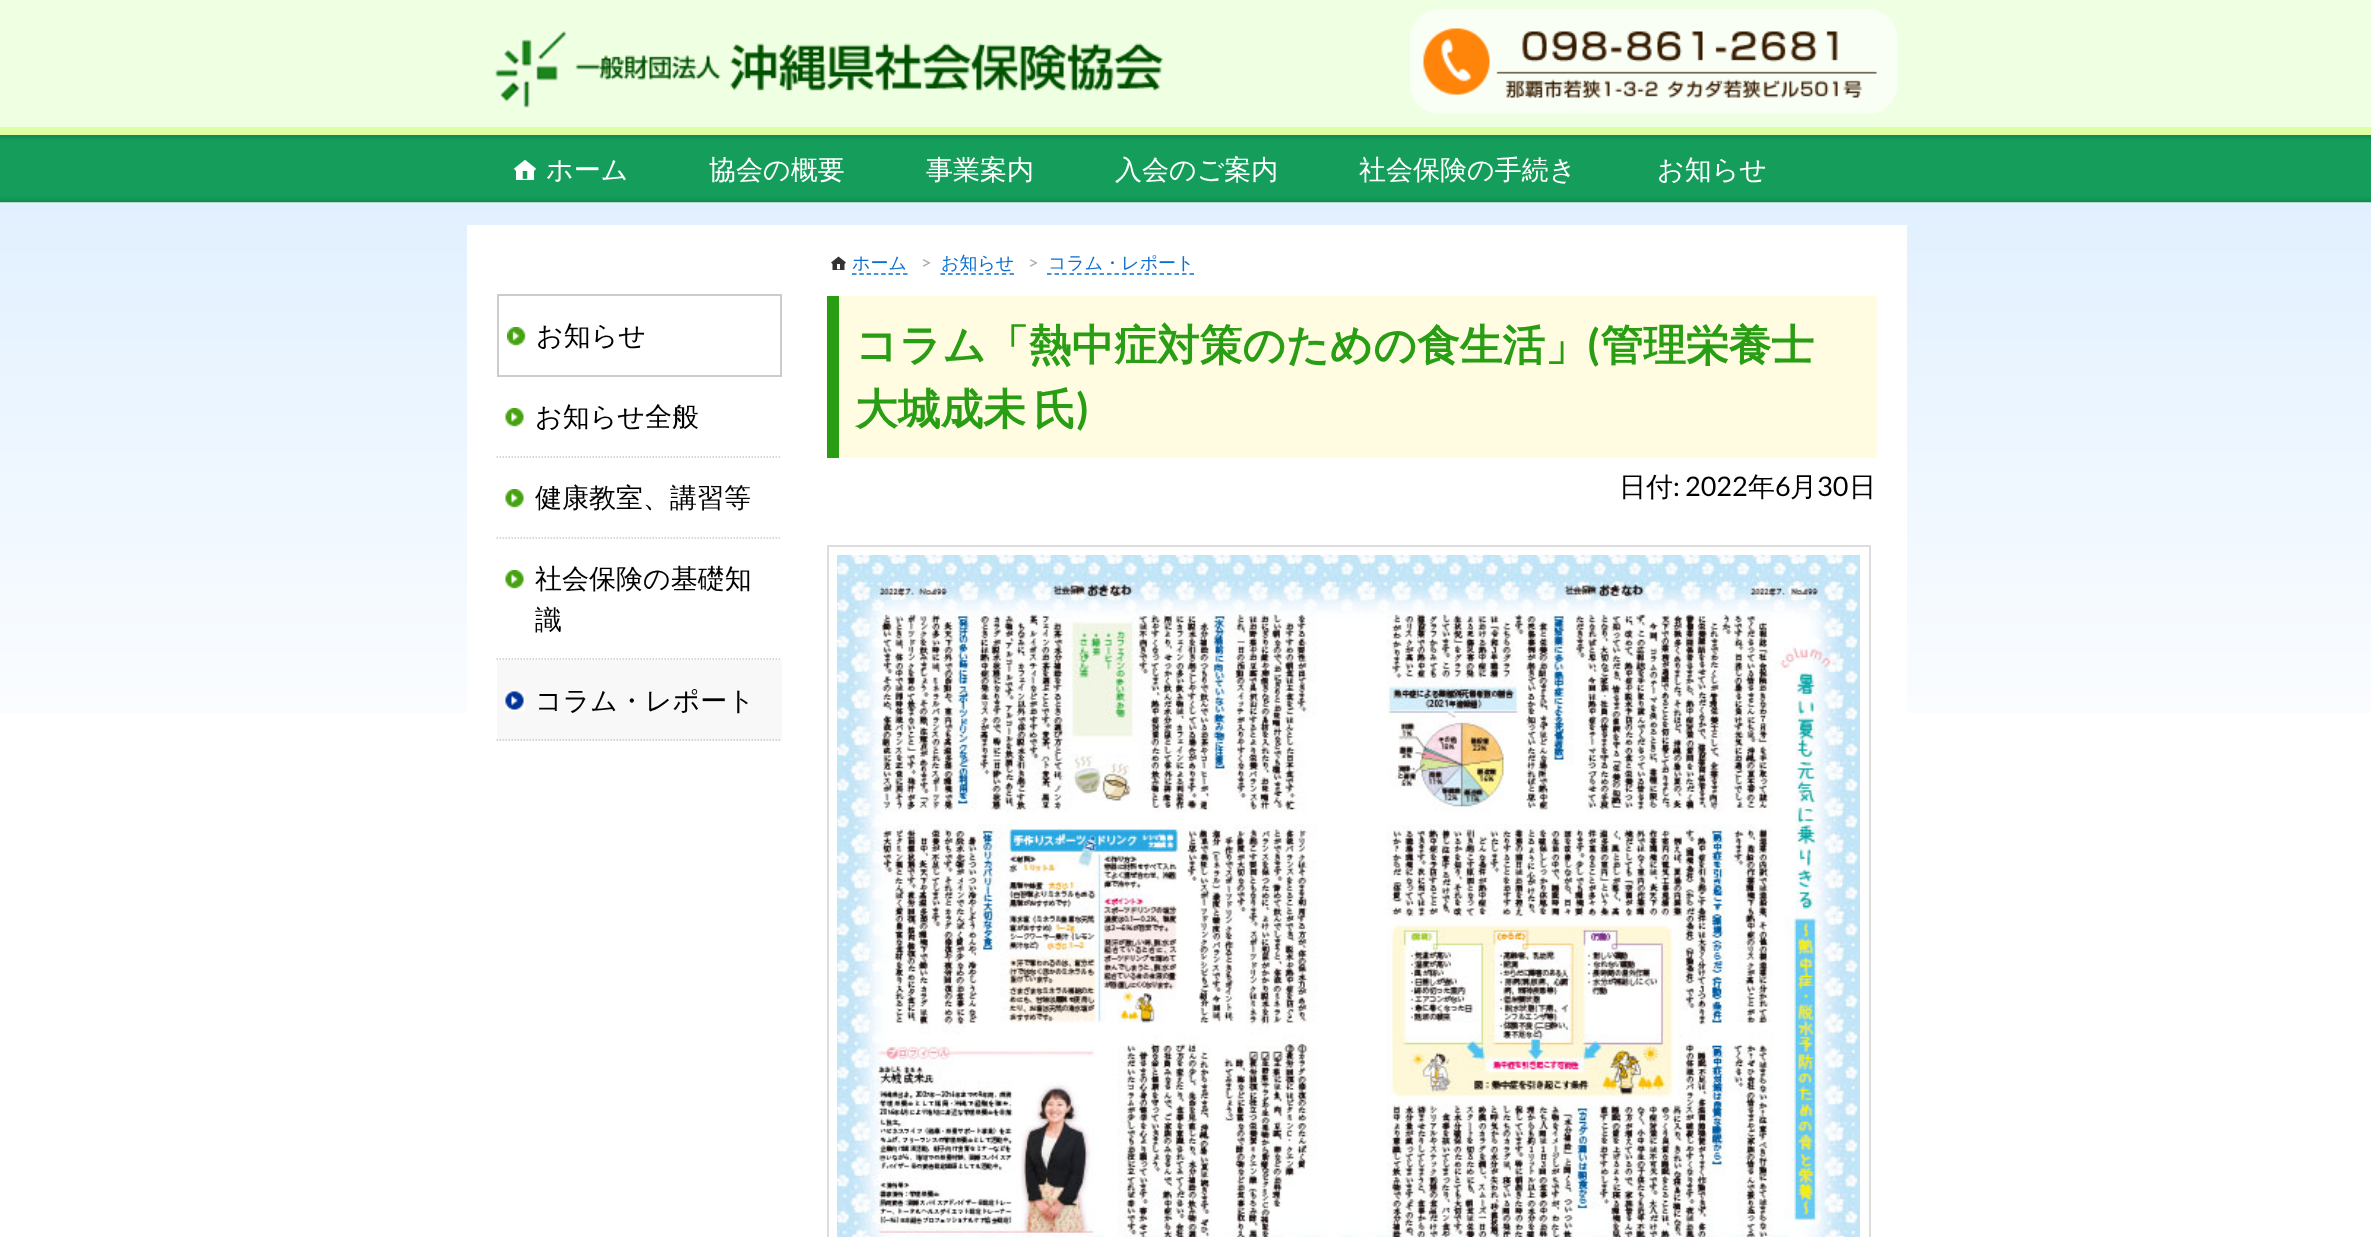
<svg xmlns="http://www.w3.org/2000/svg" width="2371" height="1237">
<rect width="100%" height="100%" fill="#fff"/>
<rect width="2371" height="203" fill="#eeffe2"/>
<rect y="127" width="2371" height="8" fill="#dfffa3"/>
<image x="495" y="30" width="668" height="80" href="media/1.png"/>
<image x="1410" y="9" width="488" height="105" href="media/2.png"/>
<image x="0" y="135" width="2371" height="68" href="media/3.png"/>
<image x="513" y="159" width="24" height="21" href="media/4.png"/>
<text x="546" y="179" style="font-family:WenQuanYi Zen Hei;font-size:27px;font-weight:500;fill:#fff">ホーム</text>
<text x="709" y="179" style="font-family:WenQuanYi Zen Hei;font-size:27px;font-weight:500;fill:#fff">協会の概要</text>
<text x="926" y="179" style="font-family:WenQuanYi Zen Hei;font-size:27px;font-weight:500;fill:#fff">事業案内</text>
<text x="1115" y="179" style="font-family:WenQuanYi Zen Hei;font-size:27px;font-weight:500;fill:#fff">入会のご案内</text>
<text x="1359" y="179" style="font-family:WenQuanYi Zen Hei;font-size:27px;font-weight:500;fill:#fff">社会保険の手続き</text>
<text x="1657" y="179" style="font-family:WenQuanYi Zen Hei;font-size:27px;font-weight:500;fill:#fff">お知らせ</text>
<image x="0" y="202" width="2371" height="511" href="media/5.png"/>
<rect x="467" y="225" width="1440" height="488" fill="#fff"/>
<image x="507" y="327" width="19" height="19" href="media/6.png"/>
<rect x="498" y="295" width="283" height="81" fill="none" stroke="#ccc" stroke-width="2"/>
<text x="536" y="345" style="font-family:WenQuanYi Zen Hei;font-size:27px;font-weight:500;fill:#000">お知らせ</text>
<image x="505" y="408" width="19" height="19" href="media/7.png"/>
<path d="M496.5 457h285" fill="none" stroke="#ccc" stroke-width="1.5" stroke-dasharray="1.5 1.5"/>
<text x="535" y="426" style="font-family:WenQuanYi Zen Hei;font-size:27px;font-weight:500;fill:#000">お知らせ全般</text>
<image x="505" y="489" width="19" height="19" href="media/7.png"/>
<path d="M496.5 538h285" fill="none" stroke="#ccc" stroke-width="1.5" stroke-dasharray="1.5 1.5"/>
<text x="535" y="507" style="font-family:WenQuanYi Zen Hei;font-size:27px;font-weight:500;fill:#000">健康教室、講習等</text>
<image x="505" y="570" width="19" height="19" href="media/7.png"/>
<path d="M496.5 659h285" fill="none" stroke="#ccc" stroke-width="1.5" stroke-dasharray="1.5 1.5"/>
<text x="535" y="588" style="font-family:WenQuanYi Zen Hei;font-size:27px;font-weight:500;fill:#000">社会保険の基礎知</text>
<text x="535" y="629" style="font-family:WenQuanYi Zen Hei;font-size:27px;font-weight:500;fill:#000">識</text>
<rect x="497" y="660" width="285" height="81" fill="#f8f8f8"/>
<image x="505" y="691" width="20" height="20" href="media/8.png"/>
<path d="M496.5 740h285" fill="none" stroke="#ccc" stroke-width="1.5" stroke-dasharray="1.5 1.5"/>
<text x="535" y="710" style="font-family:WenQuanYi Zen Hei;font-size:27px;font-weight:500;fill:#000">コラム・レポート</text>
<image x="831" y="256" width="15" height="14" href="media/9.png"/>
<text x="852" y="269" style="font-family:WenQuanYi Zen Hei;font-size:18px;font-weight:500;fill:#0d6ecf">ホーム</text>
<path d="M852 274h55.5" fill="none" stroke="#0d6ecf" stroke-width="1.5" stroke-dasharray="4.5 2.79"/>
<text x="921" y="269" style="font-family:Lato;font-size:18px;fill:#aaa">&gt;</text>
<text x="941" y="269" style="font-family:WenQuanYi Zen Hei;font-size:18px;font-weight:500;fill:#0d6ecf">お知らせ</text>
<path d="M940.5 274h73.5" fill="none" stroke="#0d6ecf" stroke-width="1.5" stroke-dasharray="4.5 3.17"/>
<text x="1028" y="269" style="font-family:Lato;font-size:18px;fill:#aaa">&gt;</text>
<text x="1048" y="269" style="font-family:WenQuanYi Zen Hei;font-size:18px;font-weight:500;fill:#0d6ecf">コラム・レポート</text>
<path d="M1047 274h147" fill="none" stroke="#0d6ecf" stroke-width="1.5" stroke-dasharray="4.5 3"/>
<rect x="839" y="296" width="1038" height="162" fill="#fffce2"/>
<rect x="827" y="296" width="12" height="162" fill="#299e14"/>
<text x="855" y="360" style="font-family:WenQuanYi Zen Hei;font-size:42.7px;font-weight:bold;fill:#299e14">コラム「熱中症対策のための食生活」 管理栄養士</text>
<text x="1587" y="360" style="font-family:Lato;font-size:42.7px;font-weight:bold;fill:#299e14">(</text>
<text x="855" y="424" word-spacing="-5" style="font-family:WenQuanYi Zen Hei;font-size:42.7px;font-weight:bold;fill:#299e14">大城成未 氏</text>
<text x="1076" y="424" style="font-family:Lato;font-size:42.7px;font-weight:bold;fill:#299e14">)</text>
<text x="1619" y="496" style="font-family:WenQuanYi Zen Hei;font-size:27px;font-weight:500;fill:#000">日付</text>
<text x="1673" y="496" style="font-family:Lato;font-size:27px;fill:#000">: 2022</text>
<text x="1748" y="496" style="font-family:WenQuanYi Zen Hei;font-size:27px;font-weight:500;fill:#000">年</text>
<text x="1775" y="496" style="font-family:Lato;font-size:27px;fill:#000">6</text>
<text x="1790" y="496" style="font-family:WenQuanYi Zen Hei;font-size:27px;font-weight:500;fill:#000">月</text>
<text x="1817" y="496" style="font-family:Lato;font-size:27px;fill:#000">30</text>
<text x="1849" y="496" style="font-family:WenQuanYi Zen Hei;font-size:27px;font-weight:500;fill:#000">日</text>
<rect x="828" y="546" width="1042" height="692" fill="none" stroke="#ddd" stroke-width="2"/>
<image x="837" y="555" width="1023" height="682" href="media/10.png"/>
</svg>
